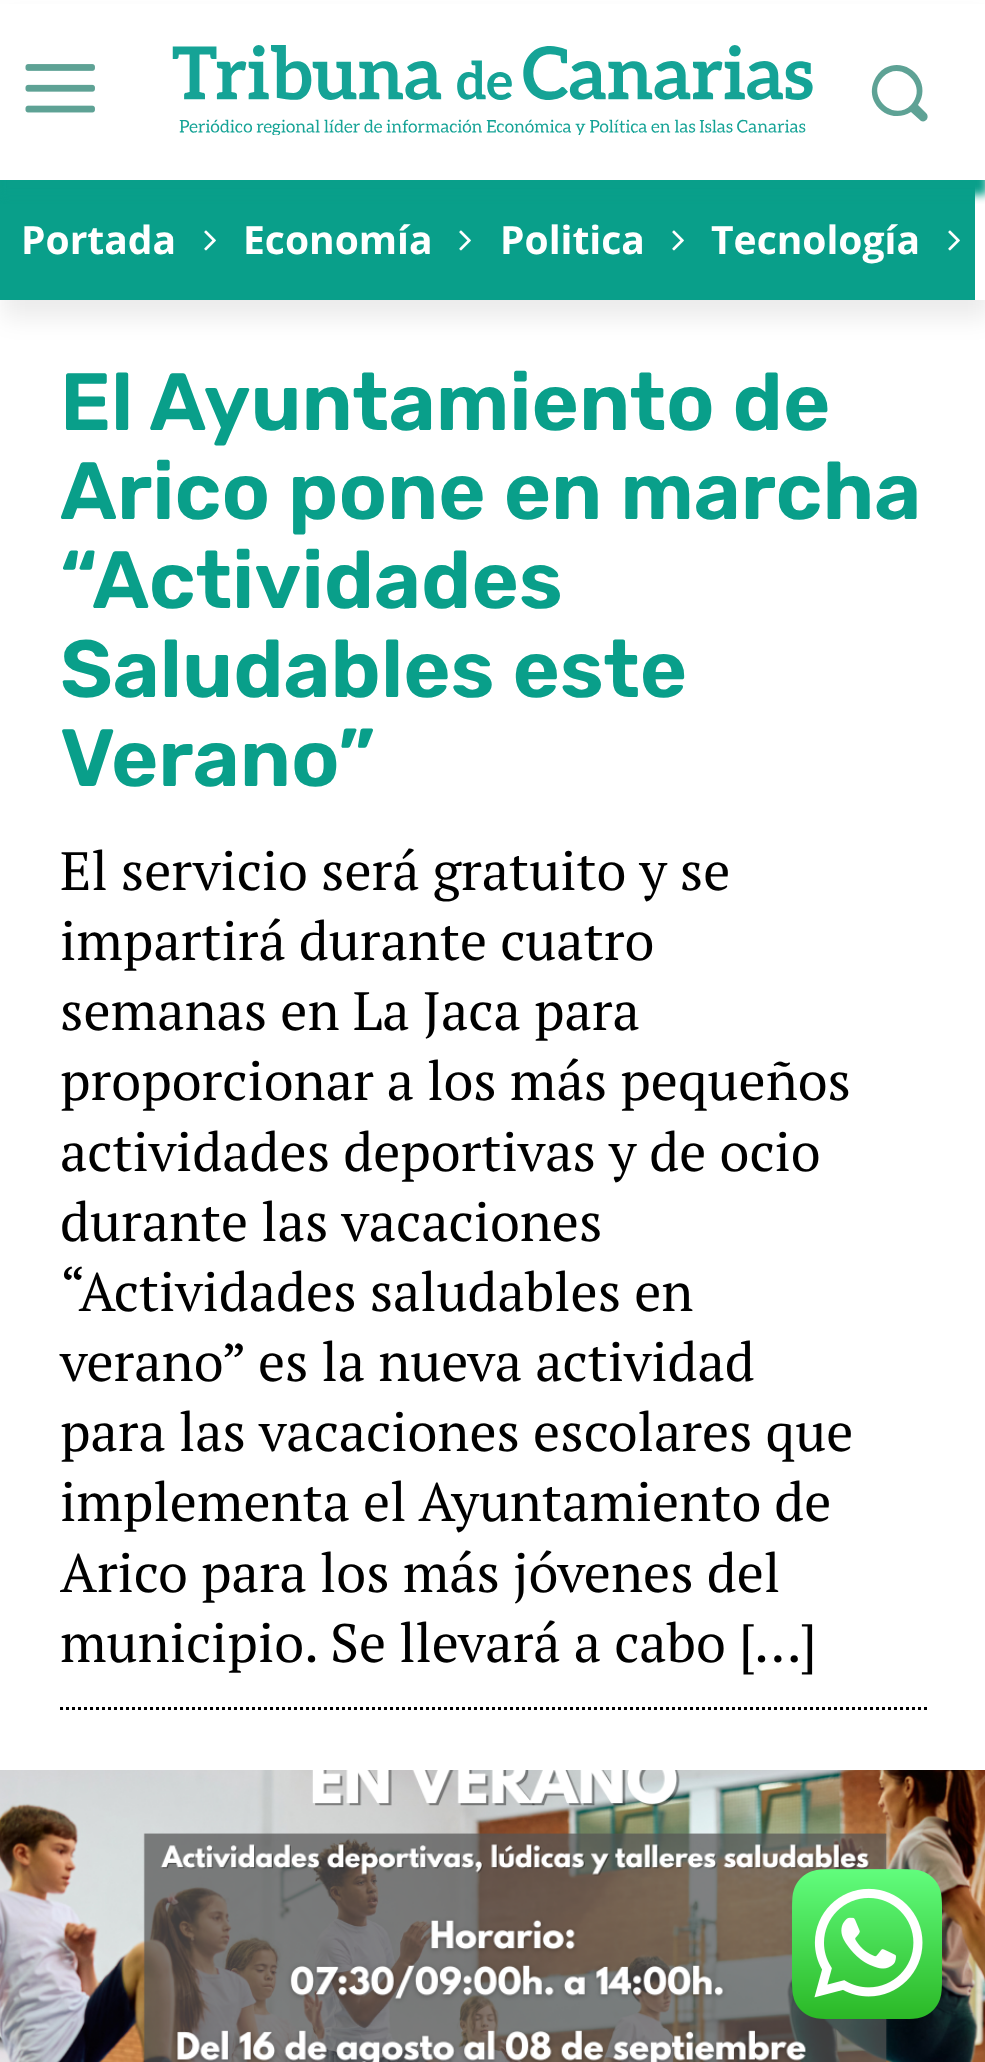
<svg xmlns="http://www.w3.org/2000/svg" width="985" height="2062">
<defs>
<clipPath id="clip1"><rect x="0" y="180" width="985" height="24"/></clipPath>
</defs>
<rect width="100%" height="100%" fill="#fff"/>
<rect x="3" y="18" width="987" height="300" fill="#00000014" filter="blur(12px)"/>
<rect y="4" width="985" height="176" fill="#fff"/>
<image x="25" y="64" width="70" height="49" href="media/1.png"/>
<image x="172" y="45" width="641" height="90" href="media/2.png"/>
<path d="M926 113l-8-8c15-22-10-49-33-37c-5 3-9 8-11 13c-3 7-3 15 1 22c7 13 24 17 36 9l10 9c5 2 9-4 5-8zm-15-8c-18 18-46-10-28-28c18-18 46 9 28 28z" fill="#5ea295"/>
<rect y="180" width="975" height="120" fill="#099f8a"/>
<rect x="975" y="180" width="10" height="120" fill="#fff"/>
<g clip-path="url(#clip1)">
<rect y="15" width="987" height="180" fill="#099f8a" filter="blur(4.5px)"/>
</g>
<text x="21" y="254" style="font-family:Open Sans;font-size:39px;font-weight:bold;fill:#fff">Portada</text>
<image x="204" y="230" width="12" height="21" href="media/3.png"/>
<text x="243" y="254" style="font-family:Open Sans;font-size:39px;font-weight:bold;fill:#fff">Economía</text>
<image x="459" y="230" width="12" height="21" href="media/3.png"/>
<text x="500" y="254" style="font-family:Open Sans;font-size:39px;font-weight:bold;fill:#fff">Politica</text>
<image x="672" y="230" width="12" height="21" href="media/3.png"/>
<text x="711" y="254" style="font-family:Open Sans;font-size:39px;font-weight:bold;fill:#fff">Tecnología</text>
<image x="948" y="230" width="12" height="21" href="media/3.png"/>
<text x="60" y="430" style="font-family:Rubik;font-size:81px;font-weight:600;fill:#099f8a">El Ayuntamiento de</text>
<text x="60" y="519" style="font-family:Rubik;font-size:81px;font-weight:600;fill:#099f8a">Arico pone en marcha</text>
<text x="60" y="608" style="font-family:Rubik;font-size:81px;font-weight:600;fill:#099f8a">“Actividades</text>
<text x="60" y="697" style="font-family:Rubik;font-size:81px;font-weight:600;fill:#099f8a">Saludables este</text>
<text x="60" y="786" style="font-family:Rubik;font-size:81px;font-weight:600;fill:#099f8a">Verano”</text>
<text x="60" y="890" style="font-family:PT Serif;font-size:54px;fill:#000">El servicio será gratuito y se</text>
<text x="60" y="960" style="font-family:PT Serif;font-size:54px;fill:#000">impartirá durante cuatro</text>
<text x="60" y="1030" style="font-family:PT Serif;font-size:54px;fill:#000">semanas en La Jaca para</text>
<text x="60" y="1100" style="font-family:PT Serif;font-size:54px;fill:#000">proporcionar a los más pequeños</text>
<text x="60" y="1171" style="font-family:PT Serif;font-size:54px;fill:#000">actividades deportivas y de ocio</text>
<text x="60" y="1241" style="font-family:PT Serif;font-size:54px;fill:#000">durante las vacaciones</text>
<text x="60" y="1311" style="font-family:PT Serif;font-size:54px;fill:#000">“Actividades saludables en</text>
<text x="60" y="1381" style="font-family:PT Serif;font-size:54px;fill:#000">verano” es la nueva actividad</text>
<text x="60" y="1451" style="font-family:PT Serif;font-size:54px;fill:#000">para las vacaciones escolares que</text>
<text x="60" y="1521" style="font-family:PT Serif;font-size:54px;fill:#000">implementa el Ayuntamiento de</text>
<text x="60" y="1592" style="font-family:PT Serif;font-size:54px;fill:#000">Arico para los más jóvenes del</text>
<text x="60" y="1662" style="font-family:PT Serif;font-size:54px;fill:#000">municipio. Se llevará a cabo […]</text>
<path d="M60 1708.5h867" fill="none" stroke="#000" stroke-width="3" stroke-dasharray="3 3"/>
<image x="0" y="1770" width="985" height="292" href="media/4.png"/>
<image x="792" y="1869" width="150" height="150" href="media/5.png"/>
</svg>
